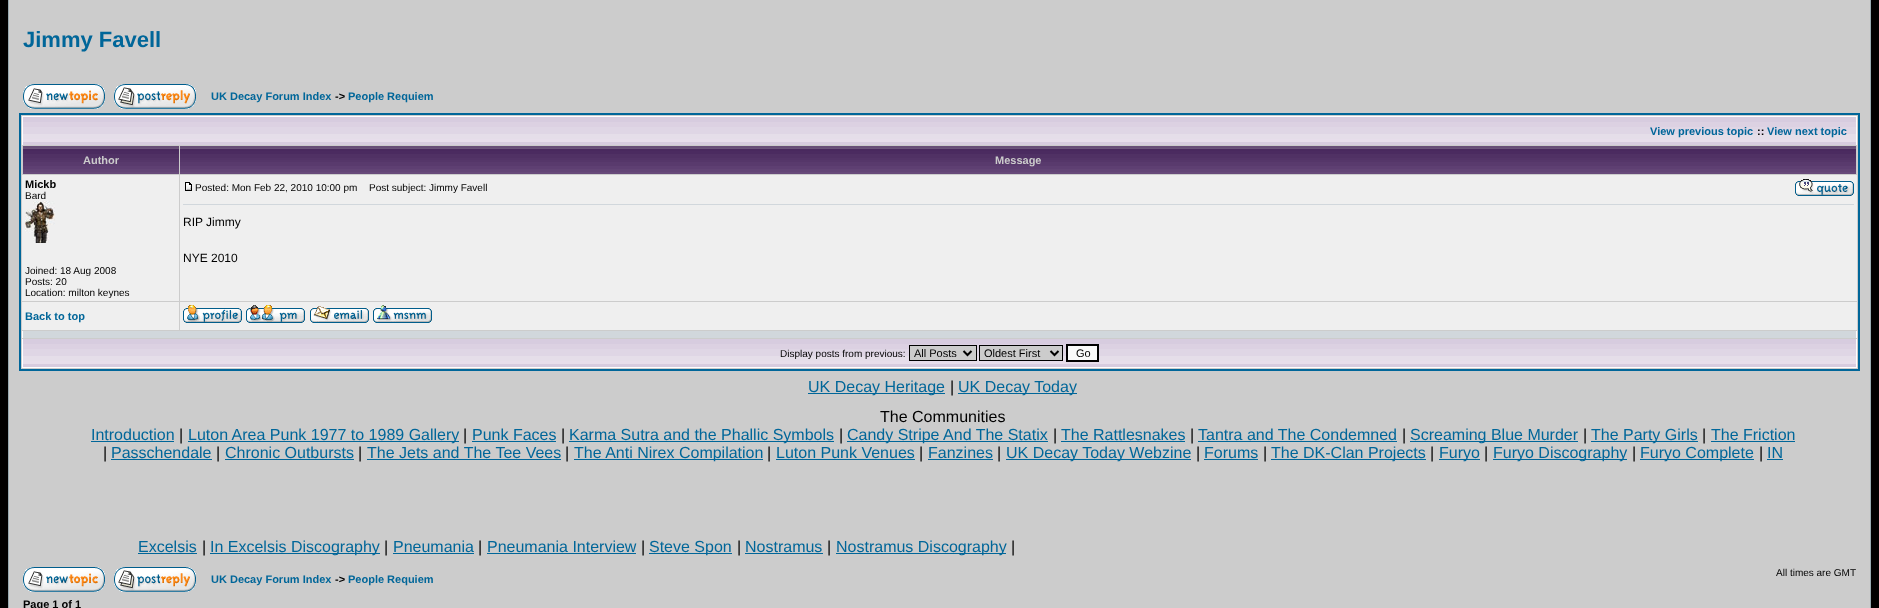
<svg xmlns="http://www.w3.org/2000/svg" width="1879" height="608">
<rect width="100%" height="100%" fill="#000"/>
<rect x="8.5" y="-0.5" width="1862" height="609" fill="#ccc" stroke="#98aab1"/>
<text x="23" y="47" style="font-family:Liberation Sans;font-size:22px;font-weight:bold;fill:#069">Jimmy Favell</text>
<image x="23" y="84" width="82" height="25" href="media/1.png"/>
<image x="114" y="84" width="82" height="25" href="media/2.png"/>
<text x="211" y="100" style="font-family:Liberation Sans;font-size:11px;font-weight:bold;fill:#069">UK Decay Forum Index</text>
<text x="335" y="100" style="font-family:Liberation Sans;font-size:11px;font-weight:bold;fill:#000">-&gt;</text>
<text x="348" y="100" style="font-family:Liberation Sans;font-size:11px;font-weight:bold;fill:#069">People Requiem</text>
<rect x="20" y="114" width="1839" height="256" fill="none" stroke="#069" stroke-width="2"/>
<image x="23" y="117" width="1833" height="28" href="media/3.png"/>
<rect x="22" y="116" width="1835" height="1" fill="#fff"/>
<rect x="1856" y="116" width="1" height="29" fill="#fff"/>
<rect x="22" y="116" width="1" height="29" fill="#fff"/>
<text x="1650" y="135" style="font-family:Liberation Sans;font-size:11px;font-weight:bold;fill:#069">View previous topic</text>
<text x="1757" y="135" style="font-family:Liberation Sans;font-size:11px;font-weight:bold;fill:#000">::</text>
<text x="1767" y="135" style="font-family:Liberation Sans;font-size:11px;font-weight:bold;fill:#069">View next topic</text>
<image x="23" y="146" width="156" height="28" href="media/4.png"/>
<text x="83" y="164" style="font-family:Liberation Sans;font-size:11px;font-weight:bold;fill:#ccc">Author</text>
<image x="180" y="146" width="1676" height="28" href="media/5.png"/>
<text x="995" y="164" style="font-family:Liberation Sans;font-size:11px;font-weight:bold;fill:#ccc">Message</text>
<rect x="22" y="175" width="157" height="126" fill="#efefef"/>
<text x="25" y="188" style="font-family:Liberation Sans;font-size:11px;font-weight:bold;fill:#000">Mickb</text>
<text x="25" y="199" style="font-family:Liberation Sans;font-size:10px;fill:#000">Bard</text>
<image x="25" y="201" width="30" height="42" href="media/6.png"/>
<text x="25" y="274" style="font-family:Liberation Sans;font-size:10px;fill:#000">Joined: 18 Aug 2008</text>
<text x="25" y="285" style="font-family:Liberation Sans;font-size:10px;fill:#000">Posts: 20</text>
<text x="25" y="296" style="font-family:Liberation Sans;font-size:10px;fill:#000">Location: milton keynes</text>
<rect x="180" y="175" width="1677" height="126" fill="#efefef"/>
<image x="185" y="182" width="7" height="9" href="media/7.png"/>
<text x="195" y="191" style="font-family:Liberation Sans;font-size:10px;fill:#000">Posted: Mon Feb 22, 2010 10:00 pm</text>
<text x="369" y="191" style="font-family:Liberation Sans;font-size:10px;fill:#000">Post subject: Jimmy Favell</text>
<image x="1795" y="179" width="59" height="17" href="media/8.png"/>
<rect x="183" y="204" width="1671" height="1" fill="#d1d7dc"/>
<text x="183" y="226" style="font-family:Liberation Sans;font-size:12px;fill:#000">RIP Jimmy</text>
<text x="183" y="262" style="font-family:Liberation Sans;font-size:12px;fill:#000">NYE 2010</text>
<rect x="22" y="302" width="157" height="28" fill="#efefef"/>
<text x="25" y="320" style="font-family:Liberation Sans;font-size:11px;font-weight:bold;fill:#069">Back to top</text>
<rect x="180" y="302" width="1677" height="28" fill="#efefef"/>
<image x="183" y="305" width="59" height="18" href="media/9.png"/>
<image x="246" y="305" width="59" height="18" href="media/10.png"/>
<image x="310" y="306" width="59" height="17" href="media/11.png"/>
<image x="373" y="305" width="59" height="18" href="media/12.png"/>
<rect x="23" y="331" width="1833" height="7" fill="#d1d7dc"/>
<rect x="1856" y="331" width="1" height="7" fill="#fff"/>
<rect x="22" y="331" width="1" height="7" fill="#fff"/>
<image x="23" y="339" width="1833" height="28" href="media/3.png"/>
<rect x="1856" y="339" width="1" height="29" fill="#fff"/>
<rect x="22" y="367" width="1835" height="1" fill="#fff"/>
<rect x="22" y="339" width="1" height="29" fill="#fff"/>
<text x="780" y="357" style="font-family:Liberation Sans;font-size:10px;fill:#000">Display posts from previous:</text>
<rect x="909.5" y="345.5" width="67" height="15" fill="#ccc" stroke="#000"/>
<path d="M963.5 351l4 4l4-4" fill="none" stroke="#000" stroke-width="2"/>
<text x="914" y="357" style="font-family:Liberation Sans;font-size:11px;fill:#000">All Posts</text>
<rect x="979.5" y="345.5" width="83" height="15" fill="#ccc" stroke="#000"/>
<path d="M1050.5 351l4 4l4-4" fill="none" stroke="#000" stroke-width="2"/>
<text x="984" y="357" style="font-family:Liberation Sans;font-size:11px;fill:#000">Oldest First</text>
<rect x="1067" y="345" width="31" height="16" fill="#fafafa" stroke="#000" stroke-width="2"/>
<text x="1076" y="357" style="font-family:Liberation Sans;font-size:11px;fill:#000">Go</text>
<rect x="808" y="393" width="137" height="1" fill="#069"/>
<text x="808" y="392" style="font-family:Liberation Sans;font-size:16px;fill:#069">UK Decay Heritage</text>
<text x="950" y="392" style="font-family:Liberation Sans;font-size:16px;fill:#000">|</text>
<rect x="958" y="393" width="119" height="1" fill="#069"/>
<text x="958" y="392" style="font-family:Liberation Sans;font-size:16px;fill:#069">UK Decay Today</text>
<text x="880" y="422" style="font-family:Liberation Sans;font-size:16px;fill:#000">The Communities</text>
<text x="91" y="440" style="font-family:Liberation Sans;font-size:16px;fill:#069">Introduction</text>
<rect x="91" y="441" width="83" height="1" fill="#069"/>
<text x="179" y="440" style="font-family:Liberation Sans;font-size:16px;fill:#000">|</text>
<rect x="188" y="441" width="271" height="1" fill="#069"/>
<text x="188" y="440" style="font-family:Liberation Sans;font-size:16px;fill:#069">Luton Area Punk 1977 to 1989 Gallery</text>
<text x="463" y="440" style="font-family:Liberation Sans;font-size:16px;fill:#000">|</text>
<text x="472" y="440" style="font-family:Liberation Sans;font-size:16px;fill:#069">Punk Faces</text>
<rect x="472" y="441" width="84" height="1" fill="#069"/>
<text x="561" y="440" style="font-family:Liberation Sans;font-size:16px;fill:#000">|</text>
<rect x="569" y="441" width="265" height="1" fill="#069"/>
<text x="569" y="440" style="font-family:Liberation Sans;font-size:16px;fill:#069">Karma Sutra and the Phallic Symbols</text>
<text x="839" y="440" style="font-family:Liberation Sans;font-size:16px;fill:#000">|</text>
<rect x="847" y="441" width="201" height="1" fill="#069"/>
<text x="847" y="440" style="font-family:Liberation Sans;font-size:16px;fill:#069">Candy Stripe And The Statix</text>
<text x="1053" y="440" style="font-family:Liberation Sans;font-size:16px;fill:#000">|</text>
<text x="1061" y="440" style="font-family:Liberation Sans;font-size:16px;fill:#069">The Rattlesnakes</text>
<rect x="1061" y="441" width="124" height="1" fill="#069"/>
<text x="1190" y="440" style="font-family:Liberation Sans;font-size:16px;fill:#000">|</text>
<text x="1198" y="440" style="font-family:Liberation Sans;font-size:16px;fill:#069">Tantra and The Condemned</text>
<rect x="1198" y="441" width="199" height="1" fill="#069"/>
<text x="1402" y="440" style="font-family:Liberation Sans;font-size:16px;fill:#000">|</text>
<rect x="1410" y="441" width="168" height="1" fill="#069"/>
<text x="1410" y="440" style="font-family:Liberation Sans;font-size:16px;fill:#069">Screaming Blue Murder</text>
<text x="1583" y="440" style="font-family:Liberation Sans;font-size:16px;fill:#000">|</text>
<rect x="1591" y="441" width="107" height="1" fill="#069"/>
<text x="1591" y="440" style="font-family:Liberation Sans;font-size:16px;fill:#069">The Party Girls</text>
<text x="1702" y="440" style="font-family:Liberation Sans;font-size:16px;fill:#000">|</text>
<text x="1711" y="440" style="font-family:Liberation Sans;font-size:16px;fill:#069">The Friction</text>
<rect x="1711" y="441" width="84" height="1" fill="#069"/>
<text x="103" y="458" style="font-family:Liberation Sans;font-size:16px;fill:#000">|</text>
<text x="111" y="458" style="font-family:Liberation Sans;font-size:16px;fill:#069">Passchendale</text>
<rect x="111" y="459" width="101" height="1" fill="#069"/>
<text x="216" y="458" style="font-family:Liberation Sans;font-size:16px;fill:#000">|</text>
<text x="225" y="458" style="font-family:Liberation Sans;font-size:16px;fill:#069">Chronic Outbursts</text>
<rect x="225" y="459" width="129" height="1" fill="#069"/>
<text x="358" y="458" style="font-family:Liberation Sans;font-size:16px;fill:#000">|</text>
<text x="367" y="458" style="font-family:Liberation Sans;font-size:16px;fill:#069">The Jets and The Tee Vees</text>
<rect x="367" y="459" width="194" height="1" fill="#069"/>
<text x="565" y="458" style="font-family:Liberation Sans;font-size:16px;fill:#000">|</text>
<rect x="574" y="459" width="189" height="1" fill="#069"/>
<text x="574" y="458" style="font-family:Liberation Sans;font-size:16px;fill:#069">The Anti Nirex Compilation</text>
<text x="767" y="458" style="font-family:Liberation Sans;font-size:16px;fill:#000">|</text>
<text x="776" y="458" style="font-family:Liberation Sans;font-size:16px;fill:#069">Luton Punk Venues</text>
<rect x="776" y="459" width="139" height="1" fill="#069"/>
<text x="919" y="458" style="font-family:Liberation Sans;font-size:16px;fill:#000">|</text>
<text x="928" y="458" style="font-family:Liberation Sans;font-size:16px;fill:#069">Fanzines</text>
<rect x="928" y="459" width="65" height="1" fill="#069"/>
<text x="997" y="458" style="font-family:Liberation Sans;font-size:16px;fill:#000">|</text>
<rect x="1006" y="459" width="185" height="1" fill="#069"/>
<text x="1006" y="458" style="font-family:Liberation Sans;font-size:16px;fill:#069">UK Decay Today Webzine</text>
<text x="1196" y="458" style="font-family:Liberation Sans;font-size:16px;fill:#000">|</text>
<text x="1204" y="458" style="font-family:Liberation Sans;font-size:16px;fill:#069">Forums</text>
<rect x="1204" y="459" width="54" height="1" fill="#069"/>
<text x="1263" y="458" style="font-family:Liberation Sans;font-size:16px;fill:#000">|</text>
<rect x="1271" y="459" width="155" height="1" fill="#069"/>
<text x="1271" y="458" style="font-family:Liberation Sans;font-size:16px;fill:#069">The DK-Clan Projects</text>
<text x="1430" y="458" style="font-family:Liberation Sans;font-size:16px;fill:#000">|</text>
<rect x="1439" y="459" width="41" height="1" fill="#069"/>
<text x="1439" y="458" style="font-family:Liberation Sans;font-size:16px;fill:#069">Furyo</text>
<text x="1484" y="458" style="font-family:Liberation Sans;font-size:16px;fill:#000">|</text>
<rect x="1493" y="459" width="134" height="1" fill="#069"/>
<text x="1493" y="458" style="font-family:Liberation Sans;font-size:16px;fill:#069">Furyo Discography</text>
<text x="1632" y="458" style="font-family:Liberation Sans;font-size:16px;fill:#000">|</text>
<rect x="1640" y="459" width="114" height="1" fill="#069"/>
<text x="1640" y="458" style="font-family:Liberation Sans;font-size:16px;fill:#069">Furyo Complete</text>
<text x="1759" y="458" style="font-family:Liberation Sans;font-size:16px;fill:#000">|</text>
<text x="1767" y="458" style="font-family:Liberation Sans;font-size:16px;fill:#069">IN</text>
<rect x="1767" y="459" width="16" height="1" fill="#069"/>
<text x="138" y="552" style="font-family:Liberation Sans;font-size:16px;fill:#069">Excelsis</text>
<rect x="138" y="553" width="59" height="1" fill="#069"/>
<text x="202" y="552" style="font-family:Liberation Sans;font-size:16px;fill:#000">|</text>
<rect x="210" y="553" width="170" height="1" fill="#069"/>
<text x="210" y="552" style="font-family:Liberation Sans;font-size:16px;fill:#069">In Excelsis Discography</text>
<text x="384" y="552" style="font-family:Liberation Sans;font-size:16px;fill:#000">|</text>
<text x="393" y="552" style="font-family:Liberation Sans;font-size:16px;fill:#069">Pneumania</text>
<rect x="393" y="553" width="81" height="1" fill="#069"/>
<text x="478" y="552" style="font-family:Liberation Sans;font-size:16px;fill:#000">|</text>
<text x="487" y="552" style="font-family:Liberation Sans;font-size:16px;fill:#069">Pneumania Interview</text>
<rect x="487" y="553" width="149" height="1" fill="#069"/>
<text x="641" y="552" style="font-family:Liberation Sans;font-size:16px;fill:#000">|</text>
<rect x="649" y="553" width="83" height="1" fill="#069"/>
<text x="649" y="552" style="font-family:Liberation Sans;font-size:16px;fill:#069">Steve Spon</text>
<text x="737" y="552" style="font-family:Liberation Sans;font-size:16px;fill:#000">|</text>
<text x="745" y="552" style="font-family:Liberation Sans;font-size:16px;fill:#069">Nostramus</text>
<rect x="745" y="553" width="78" height="1" fill="#069"/>
<text x="827" y="552" style="font-family:Liberation Sans;font-size:16px;fill:#000">|</text>
<rect x="836" y="553" width="170" height="1" fill="#069"/>
<text x="836" y="552" style="font-family:Liberation Sans;font-size:16px;fill:#069">Nostramus Discography</text>
<text x="1011" y="552" style="font-family:Liberation Sans;font-size:16px;fill:#000">|</text>
<image x="23" y="567" width="82" height="25" href="media/1.png"/>
<image x="114" y="567" width="82" height="25" href="media/2.png"/>
<text x="1776" y="576" style="font-family:Liberation Sans;font-size:10px;fill:#000">All times are GMT</text>
<text x="211" y="583" style="font-family:Liberation Sans;font-size:11px;font-weight:bold;fill:#069">UK Decay Forum Index</text>
<text x="335" y="583" style="font-family:Liberation Sans;font-size:11px;font-weight:bold;fill:#000">-&gt;</text>
<text x="348" y="583" style="font-family:Liberation Sans;font-size:11px;font-weight:bold;fill:#069">People Requiem</text>
<text x="23" y="608" style="font-family:Liberation Sans;font-size:11px;font-weight:bold;fill:#000">Page 1 of 1</text>
</svg>
